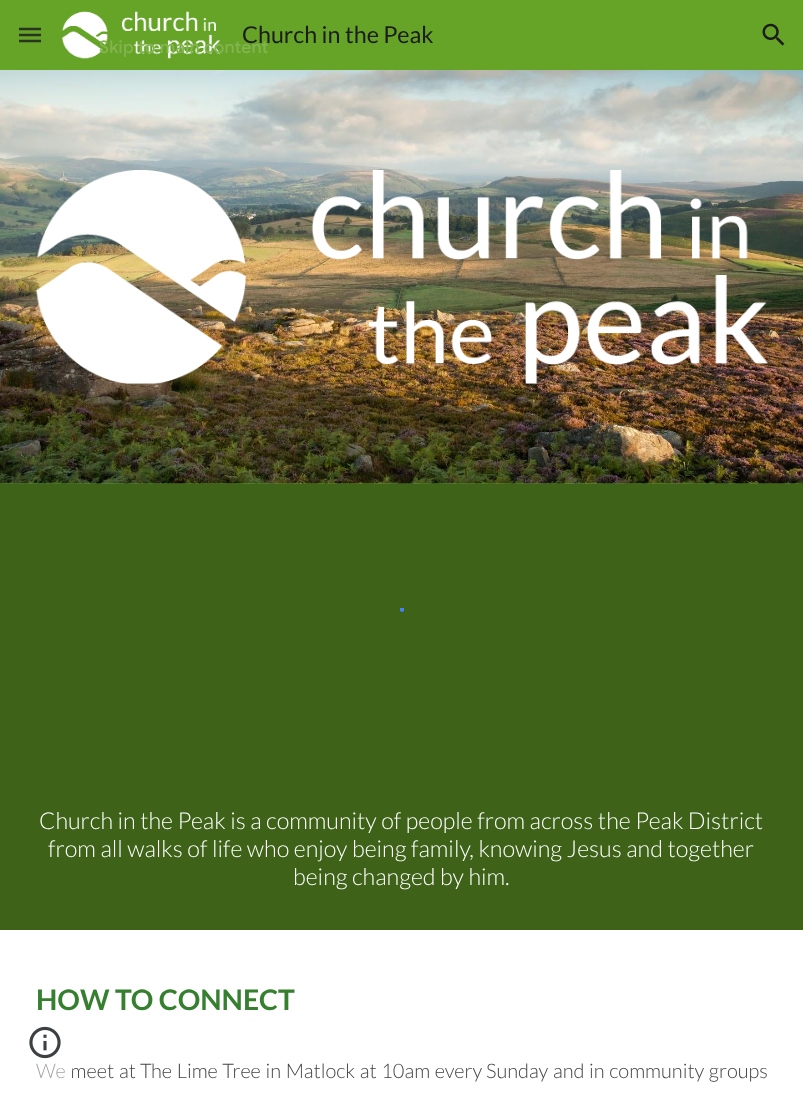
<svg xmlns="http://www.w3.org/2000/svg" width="803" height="1101">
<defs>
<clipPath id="clip1"><rect x="385" y="608" width="18" height="35"/></clipPath>
<clipPath id="clip2"><rect x="400" y="608" width="4" height="35"/></clipPath>
</defs>
<rect width="100%" height="100%" fill="#fff"/>
<rect width="803" height="70" fill="#66a428"/>
<path d="M19 29h22m-22 6h22m-22 6h22" fill="none" stroke="#29341e" stroke-width="2.5"/>
<image x="62" y="11" width="159" height="48" href="media/1.png"/>
<text x="242" y="43" style="font-family:Lato;font-size:23.3px;fill:#1c1c1c">Church in the Peak</text>
<image x="762" y="23" width="23" height="23" href="media/2.png"/>
<rect y="483" width="803" height="1" fill="#66a428"/>
<image x="0" y="70" width="803" height="414" href="media/3.png"/>
<image x="35" y="170" width="733" height="214" href="media/4.png"/>
<rect y="484" width="803" height="446" fill="#3d6218"/>
<g clip-path="url(#clip1)">
<path d="M400.5 610c3-.5 6 0 9 1.5c13.5 7.5 9 28-6.5 29.5" fill="none" stroke="#4285f2" stroke-width="3.7"/>
</g>
<g clip-path="url(#clip2)">
<path d="M391.5 636c-12.5-13 3.5-34.5 18.5-24c3.5 2.5 6 6 6.5 10c1 5-.5 10.5-4 14m-21 0c-12.5-13 3.5-34.5 18.5-24c3.5 2.5 6 6 6.5 10c1 5-.5 10.5-4 14m-21 0c-12.5-13 3.5-34.5 18.5-24c3.5 2.5 6 6 6.5 10c1 5-.5 10.5-4 14m-21 0c-12.5-13 3.5-34.5 18.5-24c3.5 2.5 6 6 6.5 10c1 5-.5 10.5-4 14" fill="none" stroke="#4285f2" stroke-width="3.8"/>
</g>
<text x="39" y="829" style="font-family:Lato;font-size:23.3px;font-weight:300;fill:#fff">Church in the Peak is a community of people from across the Peak District</text>
<text x="48" y="857" style="font-family:Lato;font-size:23.3px;font-weight:300;fill:#fff">from all walks of life who enjoy being family, knowing Jesus and together</text>
<text x="293" y="885" style="font-family:Lato;font-size:23.3px;font-weight:300;fill:#fff">being changed by him.</text>
<text x="36" y="1010" style="font-family:Lato;font-size:28.25px;font-weight:bold;fill:#357f2f">HOW TO CONNECT</text>
<text x="36" y="1078" word-spacing="1" style="font-family:Lato;font-size:20px;font-weight:300;fill:#444">We meet at</text>
<text x="140" y="1078" style="font-family:Lato;font-size:20px;font-weight:300;fill:#444">T</text>
<text x="151" y="1078" word-spacing="0.75" style="font-family:Lato;font-size:20px;font-weight:300;fill:#444">he Lime Tree in Matlock at 10am every</text>
<text x="486" y="1078" style="font-family:Lato;font-size:20px;font-weight:300;fill:#444">Sunday</text>
<text x="553" y="1078" word-spacing="0.75" style="font-family:Lato;font-size:20px;font-weight:300;fill:#444">and in community groups</text>
<rect x="15" y="1021" width="60" height="60" rx="21" fill="#ffffff80"/>
<image x="29" y="1026" width="32" height="33" href="media/5.png"/>
<text x="99" y="53" style="font-family:Google Sans;font-size:17.5px;font-weight:500;letter-spacing:0.2px;fill:#82b44f">Skip to main content</text>
</svg>
